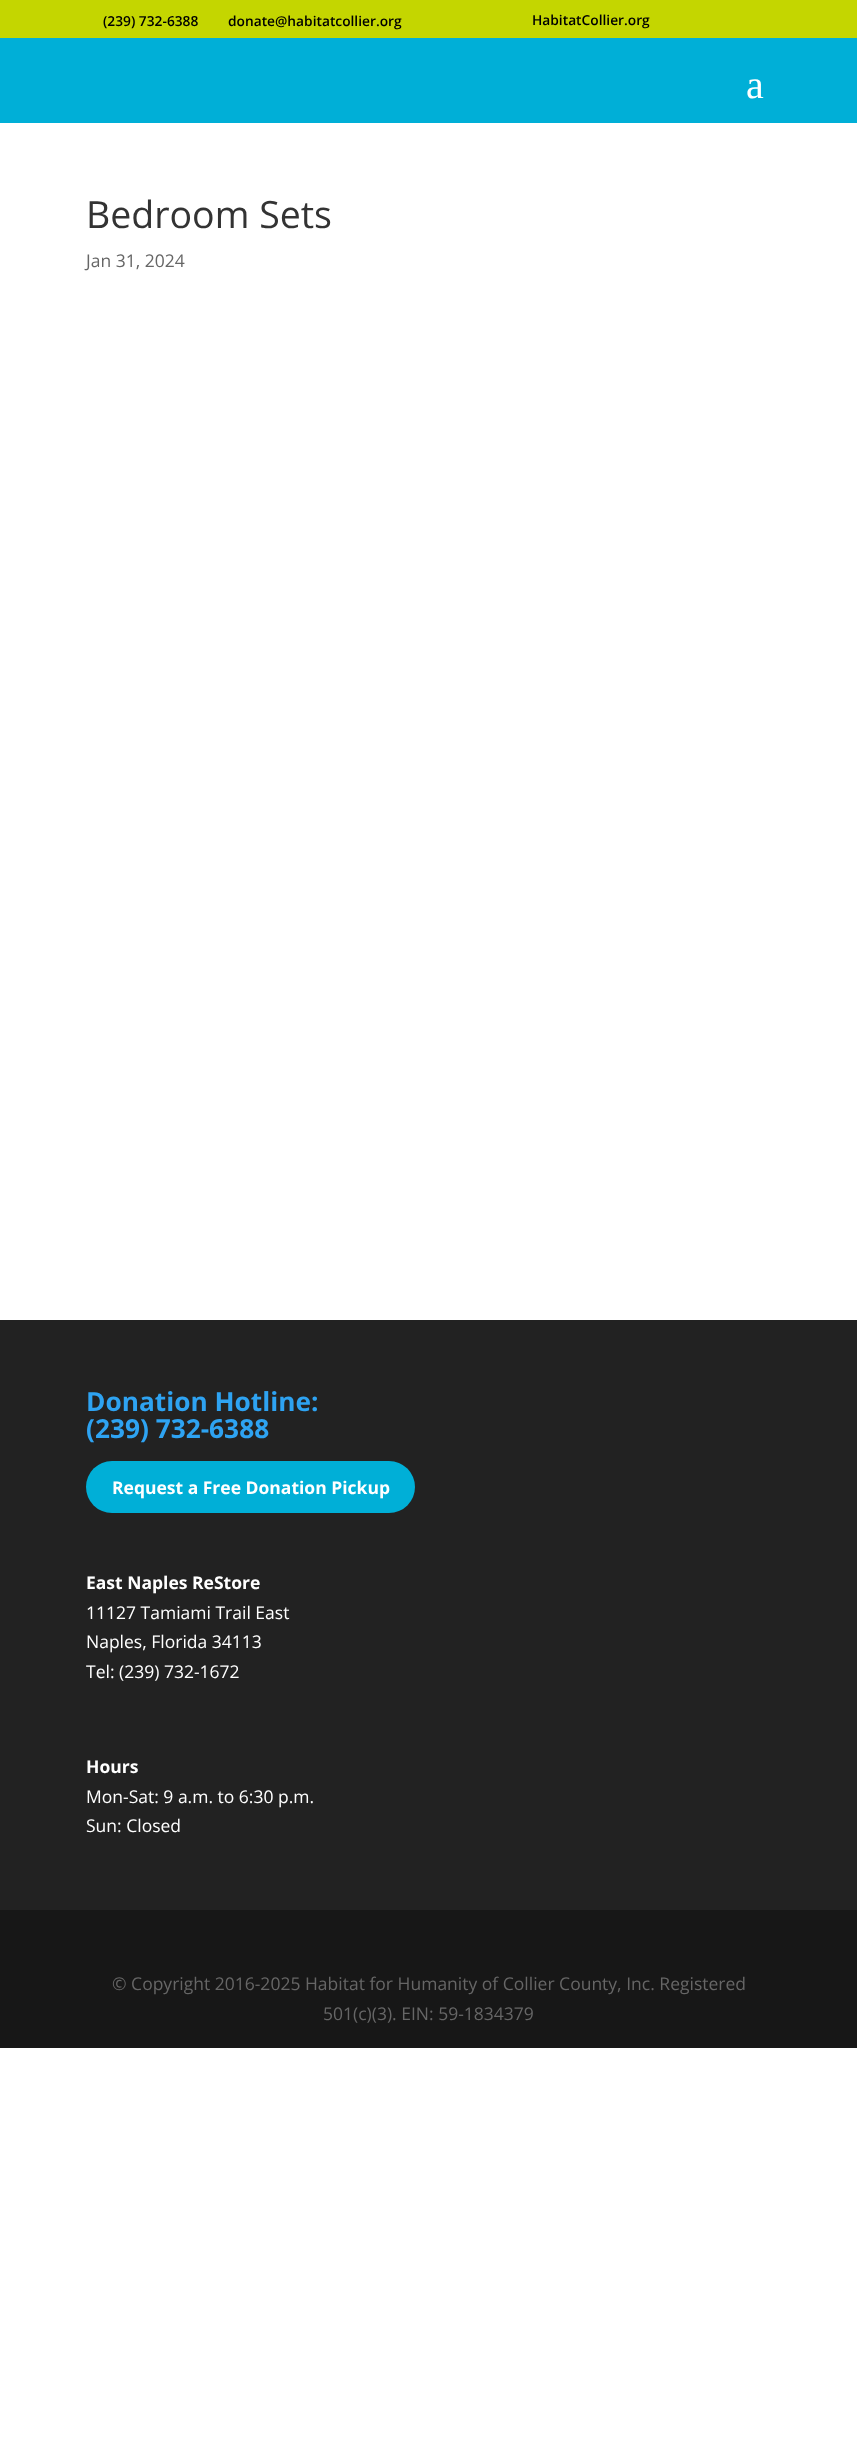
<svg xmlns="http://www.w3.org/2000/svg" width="857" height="2464">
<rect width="100%" height="100%" fill="#fff"/>
<rect width="857" height="38" fill="#c4d600"/>
<text x="103" y="26" style="font-family:Open Sans;font-size:13.75px;font-weight:600;fill:#000">(239) 732-6388</text>
<text x="228" y="26" style="font-family:Open Sans;font-size:13.75px;font-weight:600;fill:#000">donate@habitatcollier.org</text>
<text x="532" y="25" style="font-family:Open Sans;font-size:13.75px;font-weight:600;fill:#000">HabitatCollier.org</text>
<rect y="38" width="857" height="85" fill="#00afd7"/>
<text x="746" y="98" style="font-family:Liberation Serif;font-size:40px;fill:#fff">a</text>
<text x="86" y="228" style="font-family:Open Sans;font-size:37.5px;fill:#333">Bedroom Sets</text>
<text x="86" y="267" style="font-family:Open Sans;font-size:17.5px;fill:#666">Jan 31, 2024</text>
<rect y="1320" width="857" height="590" fill="#222"/>
<text x="86" y="1411" style="font-family:Open Sans;font-size:26.25px;font-weight:bold;fill:#2ea3f2">Donation Hotline:</text>
<text x="86" y="1438" style="font-family:Open Sans;font-size:26.25px;font-weight:bold;fill:#2ea3f2">(239) 732-6388</text>
<rect x="86" y="1461" width="329" height="52" rx="26" fill="#00afd7"/>
<text x="112" y="1494" style="font-family:Open Sans;font-size:17.5px;font-weight:bold;fill:#fff">Request a Free Donation Pickup</text>
<text x="86" y="1589" style="font-family:Open Sans;font-size:17.5px;font-weight:bold;fill:#fff">East Naples ReStore</text>
<text x="86" y="1619" style="font-family:Open Sans;font-size:17.5px;fill:#fff">11127 Tamiami Trail East</text>
<text x="86" y="1648" style="font-family:Open Sans;font-size:17.5px;fill:#fff">Naples, Florida 34113</text>
<text x="86" y="1678" style="font-family:Open Sans;font-size:17.5px;fill:#fff">Tel: (239) 732-1672</text>
<text x="86" y="1773" style="font-family:Open Sans;font-size:17.5px;font-weight:bold;fill:#fff">Hours</text>
<text x="86" y="1803" style="font-family:Open Sans;font-size:17.5px;fill:#fff">Mon-Sat: 9 a.m. to 6:30 p.m.</text>
<text x="86" y="1832" style="font-family:Open Sans;font-size:17.5px;fill:#fff">Sun: Closed</text>
<rect y="1910" width="857" height="138" fill="#171717"/>
<text x="112" y="1990" style="font-family:Open Sans;font-size:17.5px;fill:#666">© Copyright 2016-2025 Habitat for Humanity of Collier County, Inc. Registered</text>
<text x="323" y="2020" style="font-family:Open Sans;font-size:17.5px;fill:#666">501(c)(3). EIN: 59-1834379</text>
</svg>
